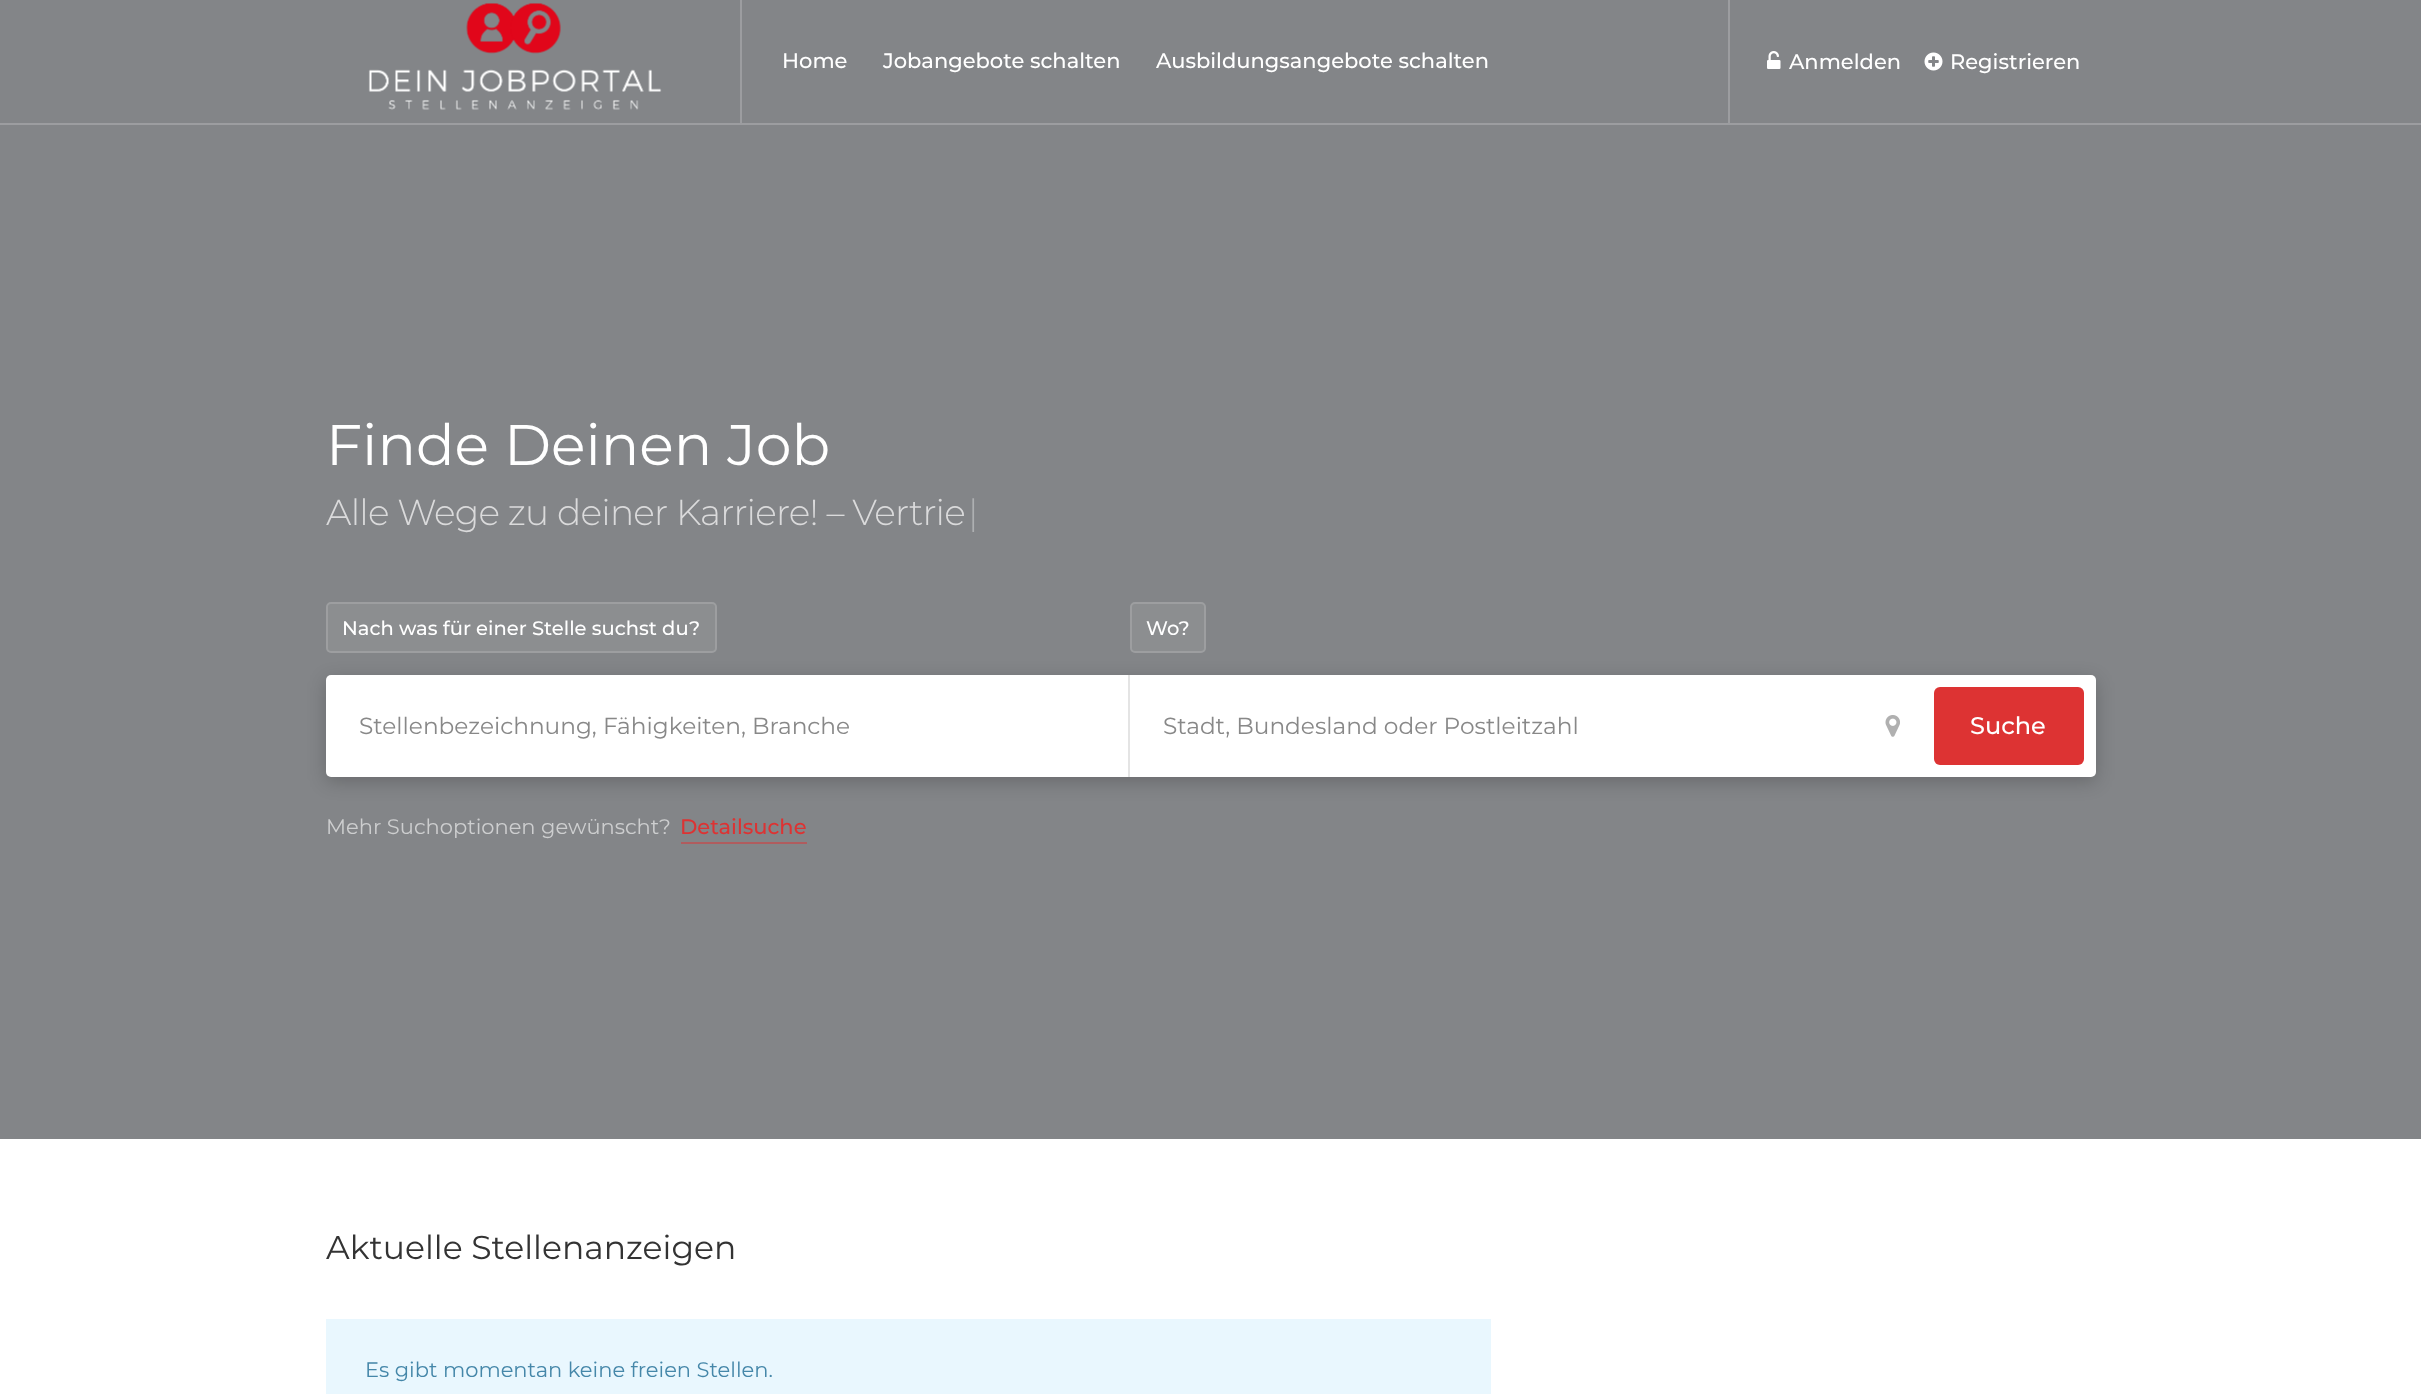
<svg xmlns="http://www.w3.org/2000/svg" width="2421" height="1394">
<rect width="100%" height="100%" fill="#fff"/>
<rect width="2421" height="1139" fill="#838588"/>
<rect y="123" width="2421" height="2" fill="#9c9da0"/>
<rect x="740" width="2" height="123" fill="#9c9da0"/>
<image x="368" y="3" width="294" height="107" href="media/1.png"/>
<text x="782" y="68" style="font-family:Montserrat;font-size:21px;font-weight:500;fill:#fff">Home</text>
<text x="883" y="68" style="font-family:Montserrat;font-size:21px;font-weight:500;fill:#fff">Jobangebote schalten</text>
<text x="1156" y="68" style="font-family:Montserrat;font-size:21px;font-weight:500;fill:#fff">Ausbildungsangebote schalten</text>
<rect x="1728" width="2" height="123" fill="#9c9da0"/>
<image x="1767" y="51" width="14" height="18" href="media/2.png"/>
<text x="1789" y="69" style="font-family:Montserrat;font-size:21px;font-weight:500;fill:#fff">Anmelden</text>
<image x="1924" y="52" width="19" height="19" href="media/3.png"/>
<text x="1950" y="69" style="font-family:Montserrat;font-size:21px;font-weight:500;fill:#fff">Registrieren</text>
<text x="326" y="465" style="font-family:Montserrat;font-size:57px;fill:#fff">Finde Deinen Job</text>
<text x="326" y="525" style="font-family:Montserrat;font-size:36px;font-weight:300;letter-spacing:-0.75px;fill:#dadadb">Alle Wege zu deiner Karriere! – Vertrie</text>
<text x="968" y="525" style="font-family:Montserrat;font-size:36px;font-weight:300;letter-spacing:-0.75px;fill:#aeb0b2">|</text>
<rect x="326" y="680" width="1770" height="102" rx="5" fill="#00000033" filter="blur(9px)"/>
<rect x="326" y="675" width="1770" height="102" rx="5" fill="#fff"/>
<rect x="1128" y="675" width="2" height="102" fill="#e4e4e4"/>
<rect x="326" y="602" width="391" height="51" rx="5" fill="#8c8e90"/>
<rect x="327" y="603" width="389" height="49" rx="4" fill="none" stroke="#ffffff26" stroke-width="2"/>
<text x="342" y="635" style="font-family:Montserrat;font-size:19.5px;font-weight:500;fill:#fff">Nach was für einer Stelle suchst du?</text>
<text x="359" y="734" style="font-family:Montserrat;font-size:23.25px;fill:#888">Stellenbezeichnung, Fähigkeiten, Branche</text>
<rect x="1130" y="602" width="76" height="51" rx="5" fill="#8c8e90"/>
<rect x="1131" y="603" width="74" height="49" rx="4" fill="none" stroke="#ffffff26" stroke-width="2"/>
<text x="1146" y="635" style="font-family:Montserrat;font-size:19.5px;font-weight:500;fill:#fff">Wo?</text>
<text x="1163" y="734" style="font-family:Montserrat;font-size:23.25px;fill:#888">Stadt, Bundesland oder Postleitzahl</text>
<image x="1885" y="715" width="15" height="22" href="media/4.png"/>
<rect x="1934" y="687" width="150" height="78" rx="6" fill="#d33"/>
<text x="1970" y="734" style="font-family:Montserrat;font-size:24px;font-weight:500;fill:#fff">Suche</text>
<text x="326" y="834" style="font-family:Montserrat;font-size:21px;fill:#cdcecf">Mehr Suchoptionen gewünscht?</text>
<text x="680" y="834" style="font-family:Montserrat;font-size:21px;font-weight:500;fill:#d33">Detailsuche</text>
<rect x="681" y="842" width="126" height="2" fill="#b05c5e"/>
<text x="326" y="1259" style="font-family:Montserrat;font-size:33px;fill:#333">Aktuelle Stellenanzeigen</text>
<rect x="326" y="1319" width="1165" height="75" fill="#e9f7fe"/>
<text x="365" y="1377" style="font-family:Montserrat;font-size:21px;fill:#4587a9">Es gibt momentan keine freien Stellen.</text>
</svg>
